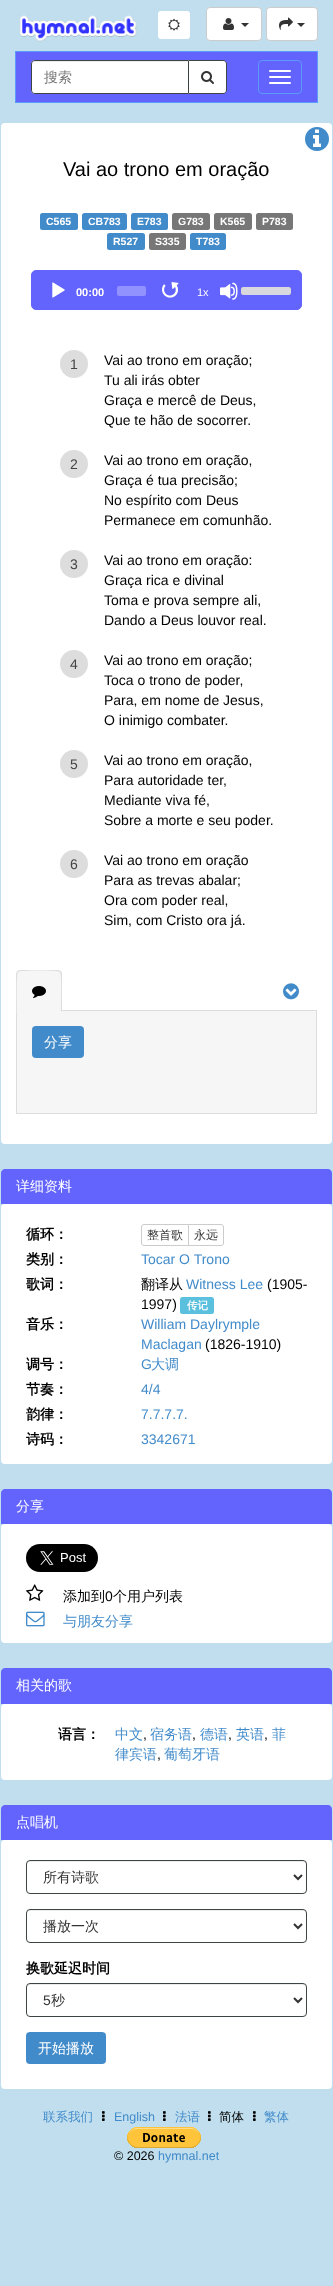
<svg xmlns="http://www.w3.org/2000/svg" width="333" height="2286">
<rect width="100%" height="100%" fill="#c0deed"/>
<image x="19" y="15" width="118" height="27" href="media/1.png"/>
<rect x="158" y="11" width="32" height="28" rx="3" fill="#fff"/>
<image x="168" y="18" width="12" height="13" href="media/2.png"/>
<rect x="206.5" y="7.5" width="55" height="33" rx="3.5" fill="#fff" stroke="#ccc"/>
<image x="223" y="18" width="11" height="12" href="media/3.png"/>
<path d="M241 23h8l-4 4z" fill="#333"/>
<rect x="266.5" y="7.5" width="51" height="33" rx="3.5" fill="#fff" stroke="#ccc"/>
<image x="279" y="17" width="14" height="13" href="media/4.png"/>
<path d="M297 23h8l-4 4z" fill="#333"/>
<rect x="15.5" y="51.5" width="302" height="51" fill="#6363fe" stroke="#5c9afd"/>
<path d="M188.5 60.5h34.5c2 0 3.5 1.5 3.5 3.5v26c0 2-1.5 3.5-3.5 3.5h-34.5z" fill="#fff" stroke="#3e4446"/>
<path d="M35 60h154v34h-154c-2 0-4-2-4-4v-26c0-2 2-4 4-4z" fill="#fff"/>
<path d="M35 62h153v-1h-154c-2 0-2 2-2 4c0-2 1-3 3-3z" fill="#ececec"/>
<path d="M35 60.5h153.5v33h-153.5c-2 0-3.5-1.5-3.5-3.5v-26c0-2 1.5-3.5 3.5-3.5z" fill="none" stroke="#3e4446"/>
<text x="44" y="82" style="font-family:WenQuanYi Zen Hei;font-size:14px;font-weight:500;fill:#777">搜索</text>
<image x="201" y="71" width="13" height="13" href="media/5.png"/>
<rect x="258.5" y="60.5" width="43" height="33" rx="3.5" fill="none" stroke="#5c9afd"/>
<rect x="269" y="70" width="22" height="2" rx="1" fill="#fff"/>
<rect x="269" y="76" width="22" height="2" rx="1" fill="#fff"/>
<rect x="269" y="82" width="22" height="2" rx="1" fill="#fff"/>
<rect x="1" y="123" width="331" height="1021" rx="4" fill="#fff"/>
<image x="305" y="127" width="24" height="24" href="media/6.png"/>
<text x="63" y="176" style="font-family:Liberation Sans;font-size:20px;fill:#000">Vai ao trono em oração</text>
<rect x="40" y="213" width="38" height="17" rx="2.5" fill="#428bca"/>
<text x="46" y="225" style="font-family:Liberation Sans;font-size:10.5px;font-weight:bold;fill:#fff">C565</text>
<rect x="82" y="213" width="45" height="17" rx="2.5" fill="#428bca"/>
<text x="88" y="225" style="font-family:Liberation Sans;font-size:10.5px;font-weight:bold;fill:#fff">CB783</text>
<rect x="131" y="213" width="37" height="17" rx="2.5" fill="#428bca"/>
<text x="137" y="225" style="font-family:Liberation Sans;font-size:10.5px;font-weight:bold;fill:#fff">E783</text>
<rect x="172" y="213" width="38" height="17" rx="2.5" fill="#777"/>
<text x="178" y="225" style="font-family:Liberation Sans;font-size:10.5px;font-weight:bold;fill:#fff">G783</text>
<rect x="214" y="213" width="38" height="17" rx="2.5" fill="#777"/>
<text x="220" y="225" style="font-family:Liberation Sans;font-size:10.5px;font-weight:bold;fill:#fff">K565</text>
<rect x="256" y="213" width="37" height="17" rx="2.5" fill="#777"/>
<text x="262" y="225" style="font-family:Liberation Sans;font-size:10.5px;font-weight:bold;fill:#fff">P783</text>
<rect x="107" y="233" width="38" height="17" rx="2.5" fill="#428bca"/>
<text x="113" y="245" style="font-family:Liberation Sans;font-size:10.5px;font-weight:bold;fill:#fff">R527</text>
<rect x="149" y="233" width="37" height="17" rx="2.5" fill="#777"/>
<text x="155" y="245" style="font-family:Liberation Sans;font-size:10.5px;font-weight:bold;fill:#fff">S335</text>
<rect x="190" y="233" width="36" height="17" rx="2.5" fill="#428bca"/>
<text x="196" y="245" style="font-family:Liberation Sans;font-size:10.5px;font-weight:bold;fill:#fff">T783</text>
<rect x="31.5" y="270.5" width="270" height="39" rx="4.5" fill="#6363fe" stroke="#6363fe"/>
<image x="52" y="282" width="13" height="16" href="media/7.png"/>
<text x="76" y="296" style="font-family:Liberation Sans;font-size:11px;font-weight:bold;fill:#fff">00:00</text>
<rect x="117" y="286" width="29" height="10" rx="2" fill="#9292fe"/>
<image x="162" y="282" width="17" height="16" href="media/8.png"/>
<text x="197" y="296" style="font-family:Liberation Sans;font-size:11px;fill:#fff">1x</text>
<image x="220" y="282" width="18" height="18" href="media/9.png"/>
<rect x="241" y="287" width="50" height="8" rx="2" fill="#3c3c5b"/>
<rect x="241" y="287" width="50" height="8" rx="2" fill="#ffffffcc"/>
<circle cx="74" cy="364" r="14" fill="#ddd"/>
<text x="70" y="369" style="font-family:Liberation Sans;font-size:14px;fill:#444">1</text>
<text x="104" y="365" style="font-family:Liberation Sans;font-size:14px;fill:#000">Vai ao trono em oração;</text>
<text x="104" y="385" style="font-family:Liberation Sans;font-size:14px;fill:#000">Tu ali irás obter</text>
<text x="104" y="405" style="font-family:Liberation Sans;font-size:14px;fill:#000">Graça e mercê de Deus,</text>
<text x="104" y="425" style="font-family:Liberation Sans;font-size:14px;fill:#000">Que te hão de socorrer.</text>
<circle cx="74" cy="464" r="14" fill="#ddd"/>
<text x="70" y="469" style="font-family:Liberation Sans;font-size:14px;fill:#444">2</text>
<text x="104" y="465" style="font-family:Liberation Sans;font-size:14px;fill:#000">Vai ao trono em oração,</text>
<text x="104" y="485" style="font-family:Liberation Sans;font-size:14px;fill:#000">Graça é tua precisão;</text>
<text x="104" y="505" style="font-family:Liberation Sans;font-size:14px;fill:#000">No espírito com Deus</text>
<text x="104" y="525" style="font-family:Liberation Sans;font-size:14px;fill:#000">Permanece em comunhão.</text>
<circle cx="74" cy="564" r="14" fill="#ddd"/>
<text x="70" y="569" style="font-family:Liberation Sans;font-size:14px;fill:#444">3</text>
<text x="104" y="565" style="font-family:Liberation Sans;font-size:14px;fill:#000">Vai ao trono em oração:</text>
<text x="104" y="585" style="font-family:Liberation Sans;font-size:14px;fill:#000">Graça rica e divinal</text>
<text x="104" y="605" style="font-family:Liberation Sans;font-size:14px;fill:#000">Toma e prova sempre ali,</text>
<text x="104" y="625" style="font-family:Liberation Sans;font-size:14px;fill:#000">Dando a Deus louvor real.</text>
<circle cx="74" cy="664" r="14" fill="#ddd"/>
<text x="70" y="669" style="font-family:Liberation Sans;font-size:14px;fill:#444">4</text>
<text x="104" y="665" style="font-family:Liberation Sans;font-size:14px;fill:#000">Vai ao trono em oração;</text>
<text x="104" y="685" style="font-family:Liberation Sans;font-size:14px;fill:#000">Toca o trono de poder,</text>
<text x="104" y="705" style="font-family:Liberation Sans;font-size:14px;fill:#000">Para, em nome de Jesus,</text>
<text x="104" y="725" style="font-family:Liberation Sans;font-size:14px;fill:#000">O inimigo combater.</text>
<circle cx="74" cy="764" r="14" fill="#ddd"/>
<text x="70" y="769" style="font-family:Liberation Sans;font-size:14px;fill:#444">5</text>
<text x="104" y="765" style="font-family:Liberation Sans;font-size:14px;fill:#000">Vai ao trono em oração,</text>
<text x="104" y="785" style="font-family:Liberation Sans;font-size:14px;fill:#000">Para autoridade ter,</text>
<text x="104" y="805" style="font-family:Liberation Sans;font-size:14px;fill:#000">Mediante viva fé,</text>
<text x="104" y="825" style="font-family:Liberation Sans;font-size:14px;fill:#000">Sobre a morte e seu poder.</text>
<circle cx="74" cy="864" r="14" fill="#ddd"/>
<text x="70" y="869" style="font-family:Liberation Sans;font-size:14px;fill:#444">6</text>
<text x="104" y="865" style="font-family:Liberation Sans;font-size:14px;fill:#000">Vai ao trono em oração</text>
<text x="104" y="885" style="font-family:Liberation Sans;font-size:14px;fill:#000">Para as trevas abalar;</text>
<text x="104" y="905" style="font-family:Liberation Sans;font-size:14px;fill:#000">Ora com poder real,</text>
<text x="104" y="925" style="font-family:Liberation Sans;font-size:14px;fill:#000">Sim, com Cristo ora já.</text>
<rect x="16.5" y="1010.5" width="300" height="103" fill="#f6f6f6" stroke="#ddd"/>
<path d="M20 970h38c2 0 4 2 4 4v38h-46v-38c0-2 2-4 4-4z" fill="#f6f6f6"/>
<path d="M20 970l-3 1l1 1c1-2 41-2 42 0l1-1l-3-1z" fill="#ddd"/>
<path d="M62 1012v-38c0-1 0-2-1-3l-1 1c2 2 1 34 1 39zm-46 0l1-1c0-5-1-37 1-39l-1-1l-1 3z" fill="#ddd"/>
<image x="32" y="986" width="14" height="12" href="media/10.png"/>
<image x="283" y="983" width="16" height="17" href="media/11.png"/>
<rect x="32" y="1026" width="52" height="32" rx="4" fill="#428bca"/>
<text x="44" y="1047" style="font-family:WenQuanYi Zen Hei;font-size:14px;font-weight:500;fill:#fff">分享</text>
<path d="M5 1169h323c2 0 4 2 4 4v31h-331v-31c0-2 2-4 4-4z" fill="#6363fe"/>
<text x="16" y="1191" style="font-family:WenQuanYi Zen Hei;font-size:14px;font-weight:500;fill:#fff">详细资料</text>
<rect x="1" y="1204" width="331" height="260" rx="4" fill="#fff"/>
<text x="26" y="1239" style="font-family:WenQuanYi Zen Hei;font-size:14px;font-weight:bold;fill:#000">循环：</text>
<path d="M188.5 1224.5h32.5c1.5 0 2.5 1 2.5 2.5v16c0 1.5-1 2.5-2.5 2.5h-32.5z" fill="none" stroke="#ccc"/>
<path d="M144 1224.5h44.5v21h-44.5c-1.5 0-2.5-1-2.5-2.5v-16c0-1.5 1-2.5 2.5-2.5z" fill="#fff" stroke="#ccc"/>
<text x="147" y="1239" style="font-family:WenQuanYi Zen Hei;font-size:12px;font-weight:500;fill:#333">整首歌</text>
<text x="194" y="1239" style="font-family:WenQuanYi Zen Hei;font-size:12px;font-weight:500;fill:#333">永远</text>
<text x="26" y="1264" style="font-family:WenQuanYi Zen Hei;font-size:14px;font-weight:bold;fill:#000">类别：</text>
<text x="141" y="1264" style="font-family:Liberation Sans;font-size:14px;fill:#428bca">Tocar O Trono</text>
<text x="26" y="1289" style="font-family:WenQuanYi Zen Hei;font-size:14px;font-weight:bold;fill:#000">歌词：</text>
<text x="141" y="1289" style="font-family:WenQuanYi Zen Hei;font-size:14px;font-weight:500;fill:#000">翻译从</text>
<text x="186" y="1289" style="font-family:Liberation Sans;font-size:14px;fill:#428bca">Witness Lee</text>
<text x="267" y="1289" style="font-family:Liberation Sans;font-size:14px;fill:#000">(1905-</text>
<text x="141" y="1309" style="font-family:Liberation Sans;font-size:14px;fill:#000">1997)</text>
<rect x="180" y="1297" width="34" height="17" rx="2.5" fill="#5bc0de"/>
<text x="187" y="1309" style="font-family:WenQuanYi Zen Hei;font-size:10.5px;font-weight:bold;fill:#fff">传记</text>
<text x="26" y="1329" style="font-family:WenQuanYi Zen Hei;font-size:14px;font-weight:bold;fill:#000">音乐：</text>
<text x="141" y="1329" style="font-family:Liberation Sans;font-size:14px;fill:#428bca">William Daylrymple</text>
<text x="141" y="1349" style="font-family:Liberation Sans;font-size:14px;fill:#428bca">Maclagan</text>
<text x="205" y="1349" style="font-family:Liberation Sans;font-size:14px;fill:#000">(1826-1910)</text>
<text x="26" y="1369" style="font-family:WenQuanYi Zen Hei;font-size:14px;font-weight:bold;fill:#000">调号：</text>
<text x="141" y="1369" style="font-family:Liberation Sans;font-size:14px;fill:#428bca">G</text>
<text x="151" y="1369" style="font-family:WenQuanYi Zen Hei;font-size:14px;font-weight:500;fill:#428bca">大调</text>
<text x="26" y="1394" style="font-family:WenQuanYi Zen Hei;font-size:14px;font-weight:bold;fill:#000">节奏：</text>
<text x="141" y="1394" style="font-family:Liberation Sans;font-size:14px;fill:#428bca">4/4</text>
<text x="26" y="1419" style="font-family:WenQuanYi Zen Hei;font-size:14px;font-weight:bold;fill:#000">韵律：</text>
<text x="141" y="1419" style="font-family:Liberation Sans;font-size:14px;fill:#428bca">7.7.7.7.</text>
<text x="26" y="1444" style="font-family:WenQuanYi Zen Hei;font-size:14px;font-weight:bold;fill:#000">诗码：</text>
<text x="141" y="1444" style="font-family:Liberation Sans;font-size:14px;fill:#428bca">3342671</text>
<path d="M5 1489h323c2 0 4 2 4 4v31h-331v-31c0-2 2-4 4-4z" fill="#6363fe"/>
<text x="16" y="1511" style="font-family:WenQuanYi Zen Hei;font-size:14px;font-weight:500;fill:#fff">分享</text>
<rect x="1" y="1524" width="331" height="119" rx="4" fill="#fff"/>
<image x="26" y="1544" width="72" height="28" href="media/12.png"/>
<image x="26" y="1584" width="18" height="17" href="media/13.png"/>
<text x="63" y="1601" style="font-family:WenQuanYi Zen Hei;font-size:14px;font-weight:500;fill:#000">添加到</text>
<text x="105" y="1601" style="font-family:Liberation Sans;font-size:14px;fill:#000">0</text>
<text x="113" y="1601" style="font-family:WenQuanYi Zen Hei;font-size:14px;font-weight:500;fill:#000">个用户列表</text>
<image x="26" y="1611" width="19" height="16" href="media/14.png"/>
<text x="63" y="1626" style="font-family:WenQuanYi Zen Hei;font-size:14px;font-weight:500;fill:#428bca">与朋友分享</text>
<path d="M5 1668h323c2 0 4 2 4 4v32h-331v-32c0-2 2-4 4-4z" fill="#6363fe"/>
<text x="16" y="1690" style="font-family:WenQuanYi Zen Hei;font-size:14px;font-weight:500;fill:#fff">相关的歌</text>
<rect x="1" y="1704" width="331" height="76" rx="4" fill="#fff"/>
<text x="58" y="1739" style="font-family:WenQuanYi Zen Hei;font-size:14px;font-weight:bold;fill:#000">语言：</text>
<text x="115" y="1739" style="font-family:WenQuanYi Zen Hei;font-size:14px;font-weight:500;fill:#428bca">中文</text>
<text x="143" y="1739" style="font-family:Liberation Sans;font-size:14px;fill:#000">,</text>
<text x="150" y="1739" style="font-family:WenQuanYi Zen Hei;font-size:14px;font-weight:500;fill:#428bca">宿务语</text>
<text x="192" y="1739" style="font-family:Liberation Sans;font-size:14px;fill:#000">,</text>
<text x="200" y="1739" style="font-family:WenQuanYi Zen Hei;font-size:14px;font-weight:500;fill:#428bca">德语</text>
<text x="228" y="1739" style="font-family:Liberation Sans;font-size:14px;fill:#000">,</text>
<text x="236" y="1739" style="font-family:WenQuanYi Zen Hei;font-size:14px;font-weight:500;fill:#428bca">英语</text>
<text x="264" y="1739" style="font-family:Liberation Sans;font-size:14px;fill:#000">,</text>
<text x="272" y="1739" style="font-family:WenQuanYi Zen Hei;font-size:14px;font-weight:500;fill:#428bca">菲</text>
<text x="115" y="1759" style="font-family:WenQuanYi Zen Hei;font-size:14px;font-weight:500;fill:#428bca">律宾语</text>
<text x="157" y="1759" style="font-family:Liberation Sans;font-size:14px;fill:#000">,</text>
<text x="164" y="1759" style="font-family:WenQuanYi Zen Hei;font-size:14px;font-weight:500;fill:#428bca">葡萄牙语</text>
<path d="M5 1805h323c2 0 4 2 4 4v31h-331v-31c0-2 2-4 4-4z" fill="#6363fe"/>
<text x="16" y="1827" style="font-family:WenQuanYi Zen Hei;font-size:14px;font-weight:500;fill:#fff">点唱机</text>
<rect x="1" y="1840" width="331" height="249" rx="4" fill="#fff"/>
<path d="M30 1862h273c2 0 3 1 3 3v-1c0-2-1-3-3-3h-273c-2 0-3 1-3 3v1c0-2 1-3 3-3z" fill="#ececec"/>
<rect x="26.5" y="1860.5" width="280" height="33" rx="3.5" fill="none" stroke="#3e4446"/>
<path d="M294 1875l4 4l4-4" fill="none" stroke="#333" stroke-width="2"/>
<text x="43" y="1882" style="font-family:WenQuanYi Zen Hei;font-size:14px;font-weight:500;fill:#333">所有诗歌</text>
<path d="M30 1911h273c2 0 3 1 3 3v-1c0-2-1-3-3-3h-273c-2 0-3 1-3 3v1c0-2 1-3 3-3z" fill="#ececec"/>
<rect x="26.5" y="1909.5" width="280" height="33" rx="3.5" fill="none" stroke="#3e4446"/>
<path d="M294 1924l4 4l4-4" fill="none" stroke="#333" stroke-width="2"/>
<text x="43" y="1931" style="font-family:WenQuanYi Zen Hei;font-size:14px;font-weight:500;fill:#333">播放一次</text>
<text x="26" y="1973" style="font-family:WenQuanYi Zen Hei;font-size:14px;font-weight:bold;fill:#000">换歌延迟时间</text>
<path d="M30 1985h273c2 0 3 1 3 3v-1c0-2-1-3-3-3h-273c-2 0-3 1-3 3v1c0-2 1-3 3-3z" fill="#ececec"/>
<rect x="26.5" y="1983.5" width="280" height="33" rx="3.5" fill="none" stroke="#3e4446"/>
<path d="M294 1998l4 4l4-4" fill="none" stroke="#333" stroke-width="2"/>
<text x="43" y="2005" style="font-family:Liberation Sans;font-size:14px;fill:#333">5</text>
<text x="51" y="2005" style="font-family:WenQuanYi Zen Hei;font-size:14px;font-weight:500;fill:#333">秒</text>
<rect x="26" y="2032" width="80" height="32" rx="4" fill="#428bca"/>
<text x="38" y="2053" style="font-family:WenQuanYi Zen Hei;font-size:14px;font-weight:500;fill:#fff">开始播放</text>
<text x="43" y="2121" style="font-family:WenQuanYi Zen Hei;font-size:12.5px;font-weight:500;fill:#428bca">联系我们</text>
<image x="102" y="2111" width="3" height="10" href="media/15.png"/>
<text x="114" y="2121" style="font-family:Liberation Sans;font-size:12.5px;fill:#428bca">English</text>
<image x="163" y="2111" width="3" height="10" href="media/15.png"/>
<text x="175" y="2121" style="font-family:WenQuanYi Zen Hei;font-size:12.5px;font-weight:500;fill:#428bca">法语</text>
<image x="208" y="2111" width="3" height="10" href="media/15.png"/>
<text x="219" y="2121" style="font-family:WenQuanYi Zen Hei;font-size:12.5px;font-weight:500;fill:#000">简体</text>
<image x="253" y="2111" width="3" height="10" href="media/15.png"/>
<text x="264" y="2121" style="font-family:WenQuanYi Zen Hei;font-size:12.5px;font-weight:500;fill:#428bca">繁体</text>
<image x="127" y="2127" width="74" height="21" href="media/16.png"/>
<text x="114" y="2160" style="font-family:Liberation Sans;font-size:12.5px;fill:#000">© 2026</text>
<text x="158" y="2160" style="font-family:Liberation Sans;font-size:12.5px;fill:#428bca">hymnal.net</text>
</svg>
